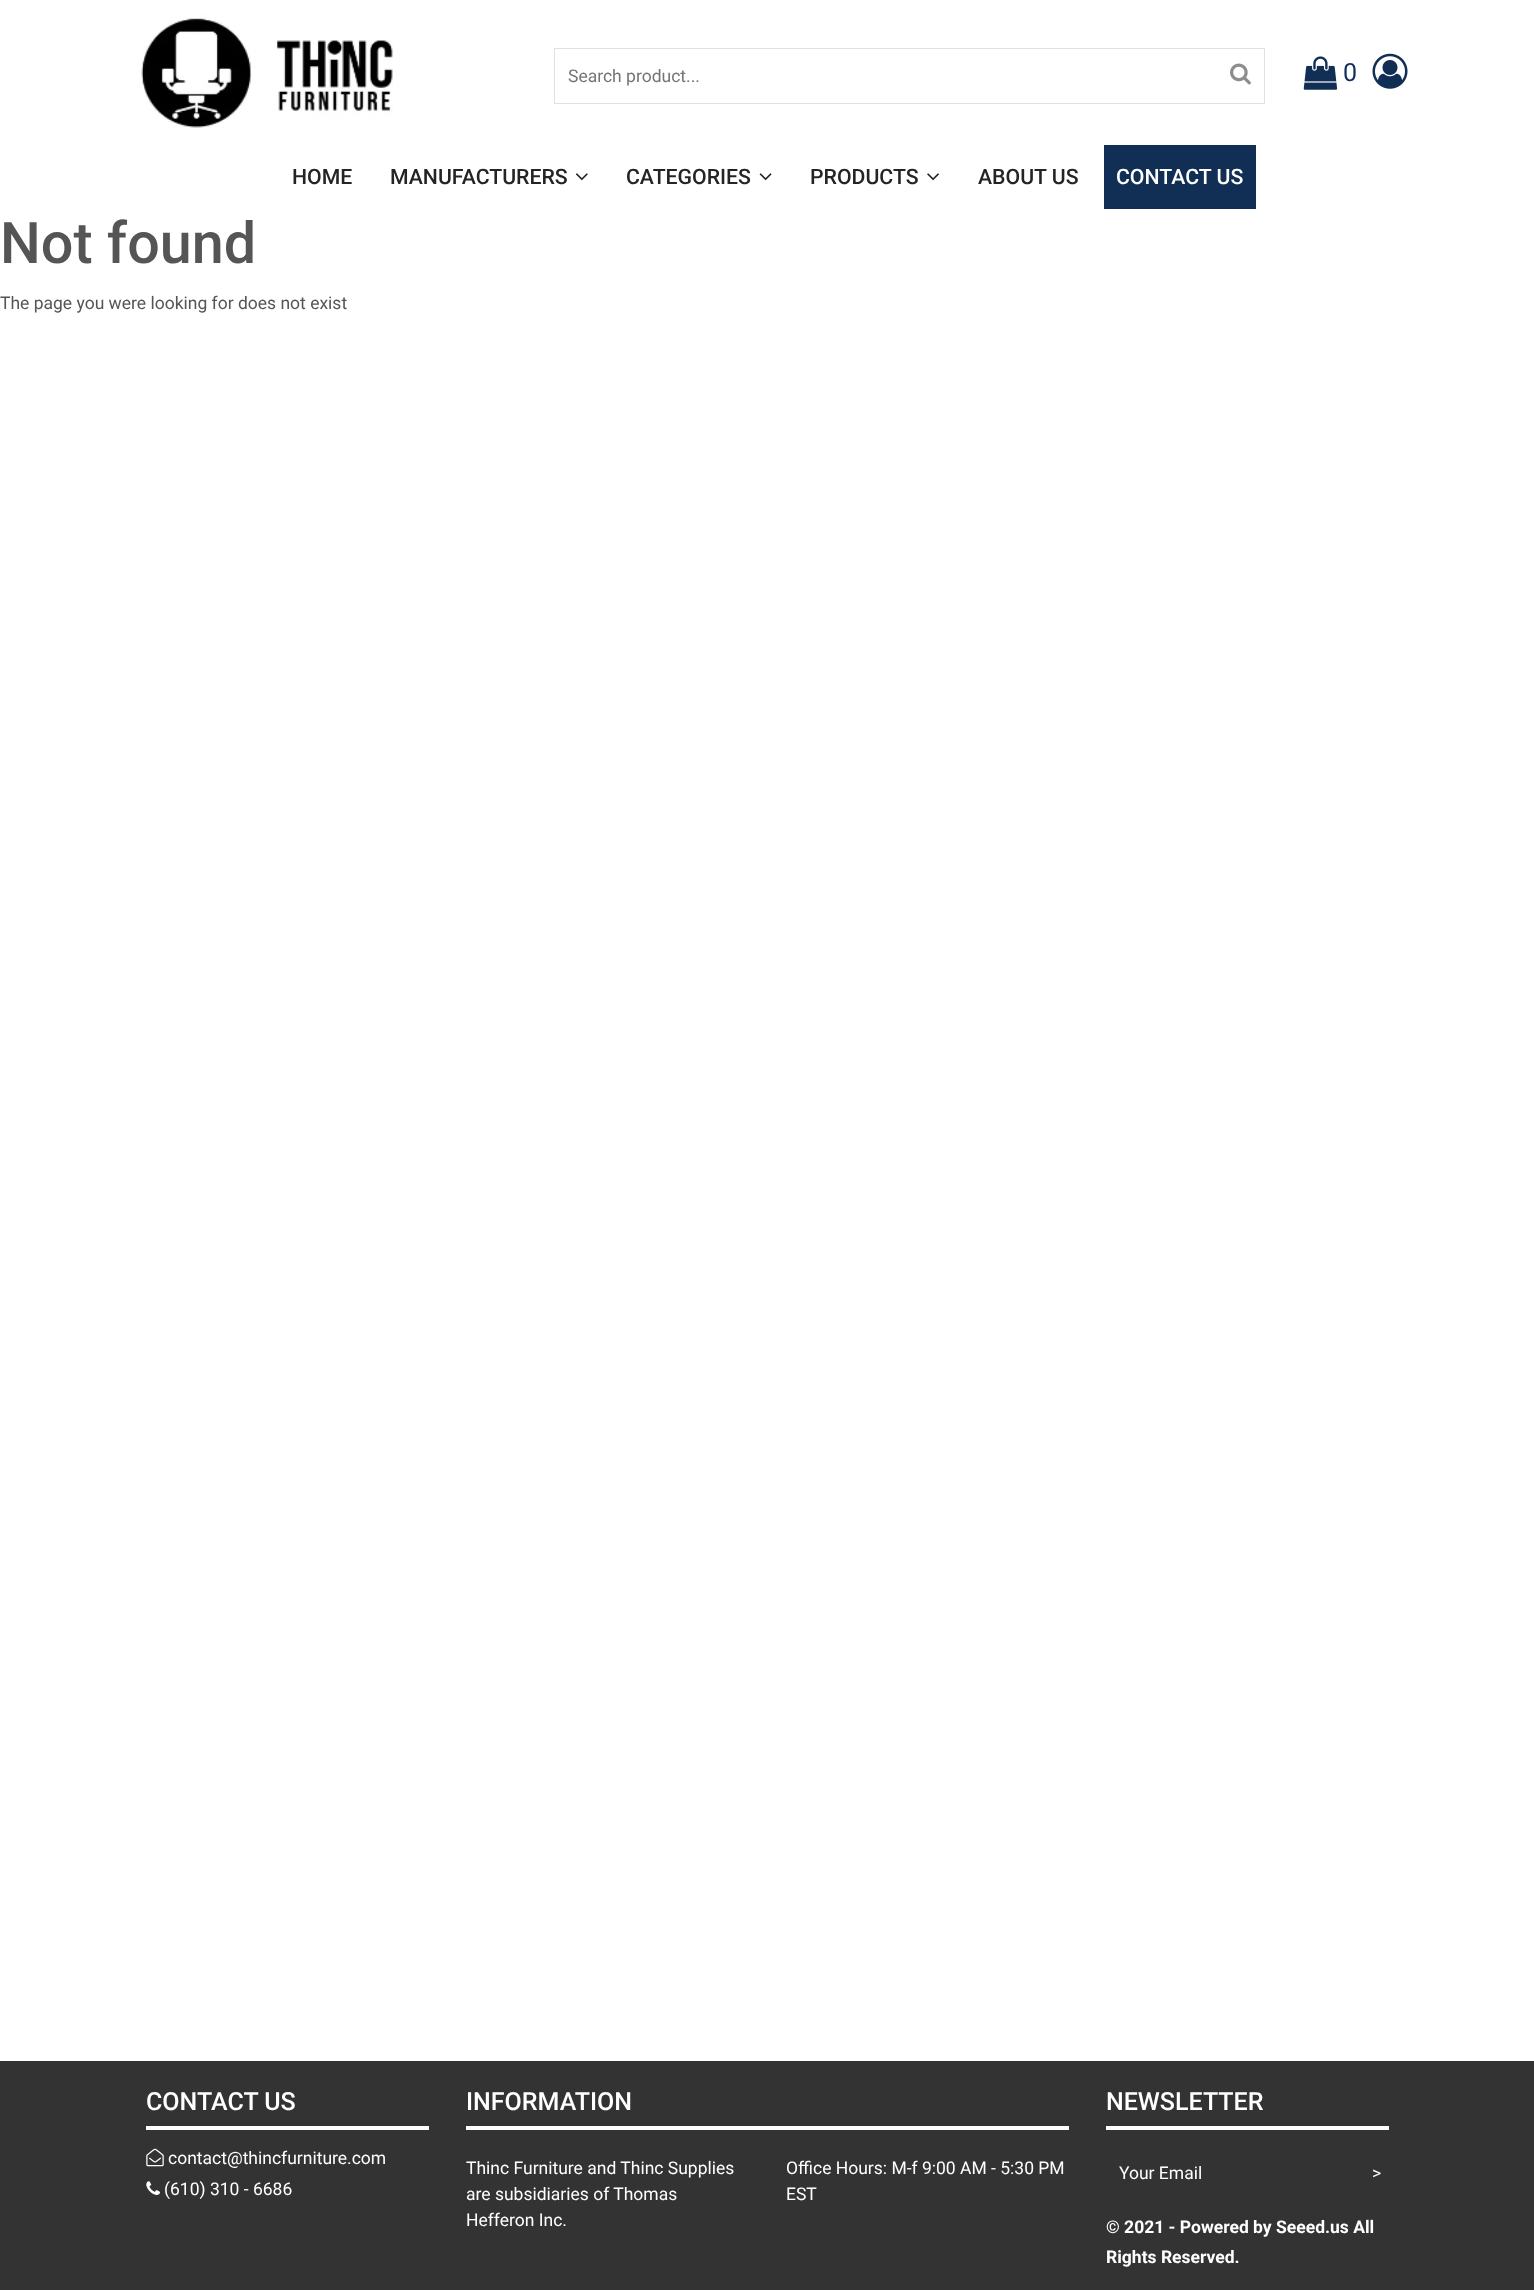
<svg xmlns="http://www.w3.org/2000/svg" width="1534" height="2290">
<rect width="100%" height="100%" fill="#fff"/>
<image x="138" y="15" width="255" height="113" href="media/1.png"/>
<rect x="554.5" y="48.5" width="710" height="55" fill="none" stroke="#dee2e6"/>
<text x="568" y="82" style="font-family:Roboto;font-size:17.5px;fill:#757575">Search product...</text>
<image x="1230" y="63" width="21" height="22" href="media/2.png"/>
<image x="1303" y="56" width="35" height="34" href="media/3.png"/>
<text x="1343" y="81" style="font-family:Roboto;font-size:25px;fill:#112e55">0</text>
<image x="1372" y="53" width="36" height="36" href="media/4.png"/>
<text x="292" y="184" style="font-family:Roboto;font-size:21.25px;font-weight:500;fill:#242424">HOME</text>
<text x="390" y="184" style="font-family:Roboto;font-size:21.25px;font-weight:500;fill:#242424">MANUFACTURERS</text>
<image x="576" y="173" width="12" height="8" href="media/5.png"/>
<text x="626" y="184" style="font-family:Roboto;font-size:21.25px;font-weight:500;fill:#242424">CATEGORIES</text>
<image x="759" y="173" width="13" height="8" href="media/6.png"/>
<text x="810" y="184" style="font-family:Roboto;font-size:21.25px;font-weight:500;fill:#242424">PRODUCTS</text>
<image x="927" y="173" width="12" height="8" href="media/7.png"/>
<text x="978" y="184" style="font-family:Roboto;font-size:21.25px;font-weight:500;fill:#242424">ABOUT US</text>
<rect x="1104" y="145" width="152" height="64" fill="#112e55"/>
<text x="1116" y="184" style="font-family:Roboto;font-size:21.25px;font-weight:500;fill:#fff">CONTACT US</text>
<text x="0" y="263" style="font-family:Roboto;font-size:57.5px;font-weight:500;fill:#555">Not found</text>
<text x="0" y="309" style="font-family:Roboto;font-size:17.5px;fill:#555">The page you were looking for does not exist</text>
<rect y="2061" width="1534" height="229" fill="#333"/>
<rect x="146" y="2126" width="283" height="4" fill="#fff"/>
<text x="146" y="2110" style="font-family:Roboto;font-size:25px;font-weight:500;fill:#fff">CONTACT US</text>
<image x="146" y="2148" width="18" height="19" href="media/8.png"/>
<text x="168" y="2164" style="font-family:Roboto;font-size:17.5px;fill:#fff">contact@thincfurniture.com</text>
<image x="146" y="2181" width="14" height="14" href="media/9.png"/>
<text x="164" y="2195" style="font-family:Roboto;font-size:17.5px;fill:#fff">(610) 310 - 6686</text>
<rect x="466" y="2126" width="603" height="4" fill="#fff"/>
<text x="466" y="2110" style="font-family:Roboto;font-size:25px;font-weight:500;fill:#fff">INFORMATION</text>
<text x="466" y="2174" style="font-family:Roboto;font-size:17.5px;fill:#fff">Thinc Furniture and Thinc Supplies</text>
<text x="466" y="2200" style="font-family:Roboto;font-size:17.5px;fill:#fff">are subsidiaries of Thomas</text>
<text x="466" y="2226" style="font-family:Roboto;font-size:17.5px;fill:#fff">Hefferon Inc.</text>
<text x="786" y="2174" style="font-family:Roboto;font-size:17.5px;fill:#fff">Office Hours: M-f 9:00 AM - 5:30 PM</text>
<text x="786" y="2200" style="font-family:Roboto;font-size:17.5px;fill:#fff">EST</text>
<rect x="1106" y="2126" width="283" height="4" fill="#fff"/>
<text x="1106" y="2110" style="font-family:Roboto;font-size:25px;font-weight:500;fill:#fff">NEWSLETTER</text>
<text x="1119" y="2179" style="font-family:Roboto;font-size:17.5px;fill:#fff">Your Email</text>
<text x="1372" y="2179" style="font-family:Roboto;font-size:17.5px;fill:#fff">&gt;</text>
<text x="1106" y="2233" style="font-family:Roboto;font-size:17.5px;font-weight:bold;fill:#fff">© 2021 - Powered by Seeed.us All</text>
<text x="1106" y="2263" style="font-family:Roboto;font-size:17.5px;font-weight:bold;fill:#fff">Rights Reserved.</text>
</svg>
